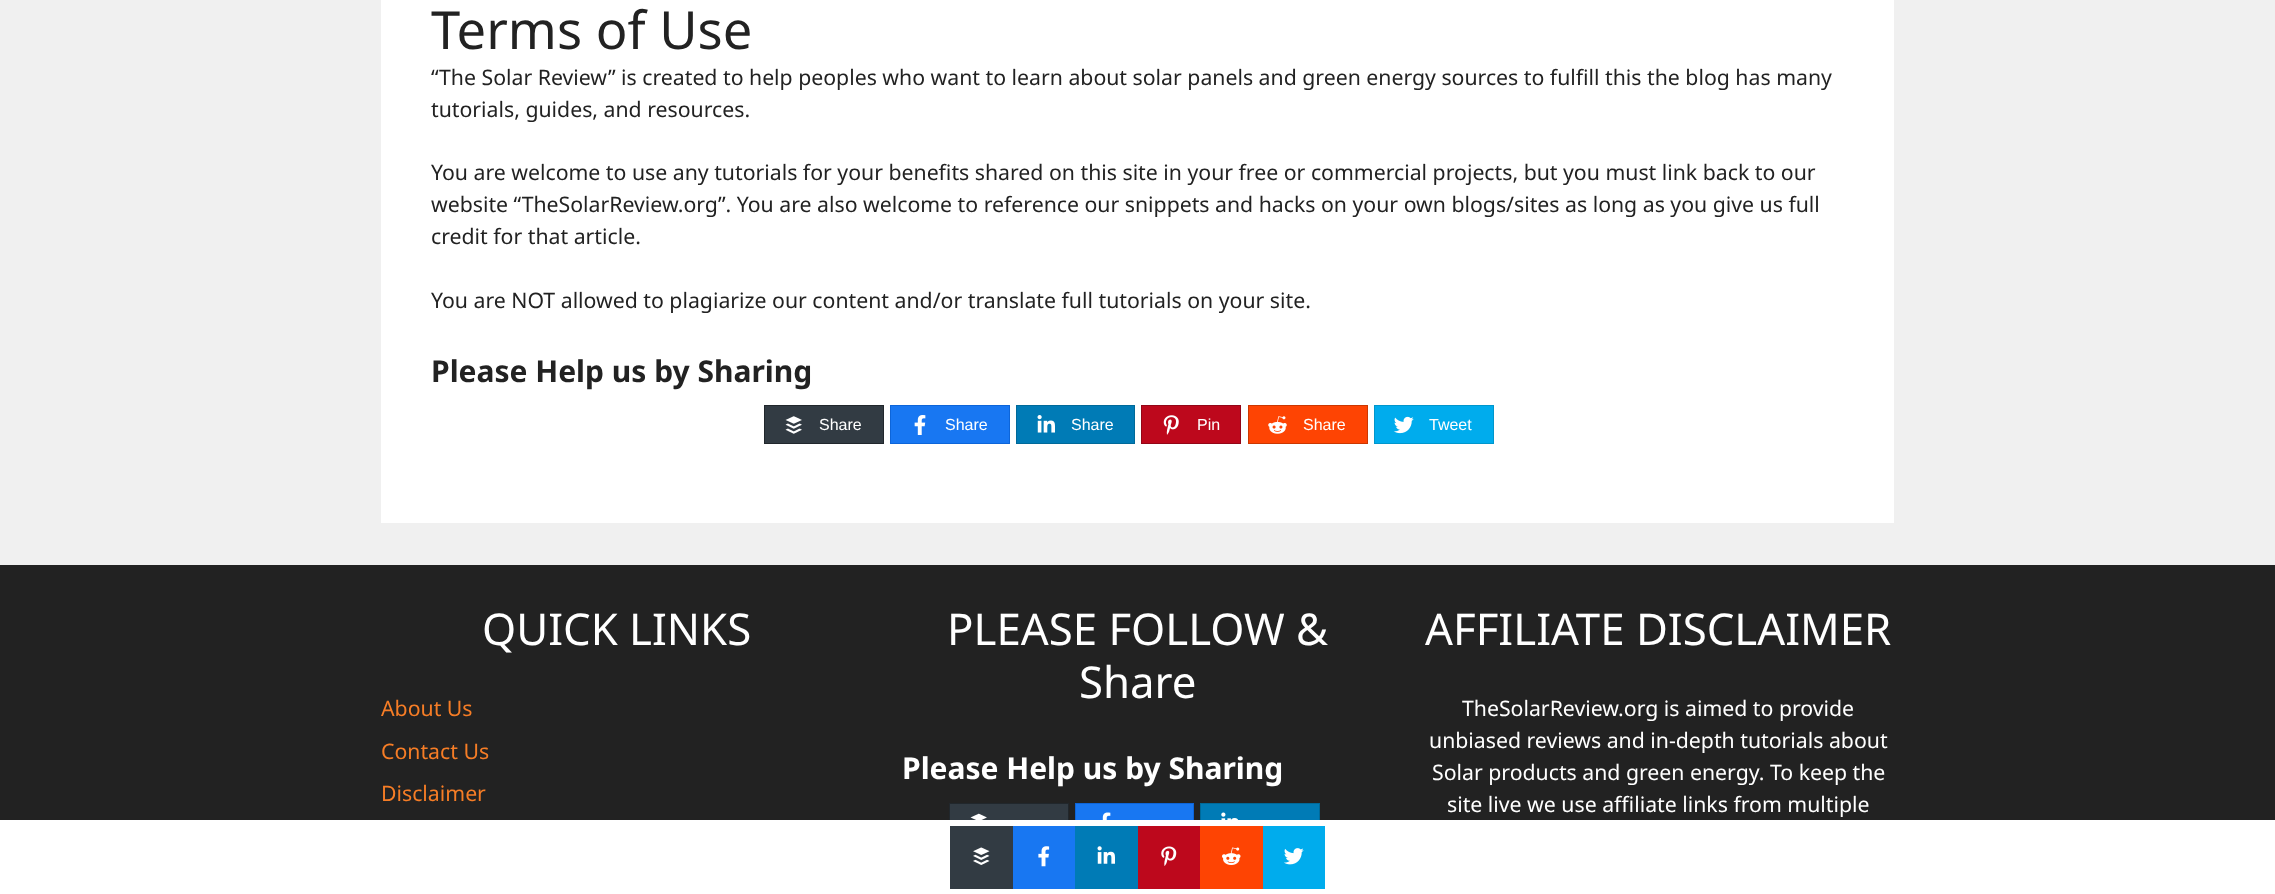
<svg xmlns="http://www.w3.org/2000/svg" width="2275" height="894">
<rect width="100%" height="100%" fill="#f0f0f0"/>
<rect x="381" width="1513" height="523" fill="#fff"/>
<text x="431" y="49" style="font-family:Noto Sans;font-size:52.5px;fill:#222">Terms of Use</text>
<text x="431" y="85" style="font-family:Noto Sans;font-size:21.25px;fill:#222">“The Solar Review” is created to help peoples who want to learn about solar panels and green energy sources to fulfill this the blog has many</text>
<text x="431" y="117" style="font-family:Noto Sans;font-size:21.25px;fill:#222">tutorials, guides, and resources.</text>
<text x="431" y="180" style="font-family:Noto Sans;font-size:21.25px;fill:#222">You are welcome to use any tutorials for your benefits shared on this site in your free or commercial projects, but you must link back to our</text>
<text x="431" y="212" style="font-family:Noto Sans;font-size:21.25px;fill:#222">website “TheSolarReview.org”. You are also welcome to reference our snippets and hacks on your own blogs/sites as long as you give us full</text>
<text x="431" y="244" style="font-family:Noto Sans;font-size:21.25px;fill:#222">credit for that article.</text>
<text x="431" y="308" style="font-family:Noto Sans;font-size:21.25px;fill:#222">You are NOT allowed to plagiarize our content and/or translate full tutorials on your site.</text>
<text x="431" y="382" style="font-family:Noto Sans;font-size:30px;font-weight:bold;fill:#222">Please Help us by Sharing</text>
<rect x="764.5" y="405.5" width="119" height="38" fill="#323b43" stroke="#21272c"/>
<image x="785" y="416" width="17" height="18" href="media/1.png"/>
<text x="819" y="430" style="font-family:Liberation Sans;font-size:16px;fill:#fff">Share</text>
<rect x="890.5" y="405.5" width="119" height="38" fill="#1877f2" stroke="#0d65d9"/>
<image x="914" y="415" width="12" height="20" href="media/2.png"/>
<text x="945" y="430" style="font-family:Liberation Sans;font-size:16px;fill:#fff">Share</text>
<rect x="1016.5" y="405.5" width="118" height="38" fill="#007bb6" stroke="#006999"/>
<image x="1037" y="415" width="18" height="18" href="media/3.png"/>
<text x="1071" y="430" style="font-family:Liberation Sans;font-size:16px;fill:#fff">Share</text>
<rect x="1141.5" y="405.5" width="99" height="38" fill="#bd081c" stroke="#930617"/>
<image x="1163" y="415" width="16" height="20" href="media/4.png"/>
<text x="1197" y="430" style="font-family:Liberation Sans;font-size:16px;fill:#fff">Pin</text>
<rect x="1248.5" y="405.5" width="119" height="38" fill="#fe4403" stroke="#cb3701"/>
<image x="1268" y="416" width="19" height="18" href="media/5.png"/>
<text x="1303" y="430" style="font-family:Liberation Sans;font-size:16px;fill:#fff">Share</text>
<rect x="1374.5" y="405.5" width="119" height="38" fill="#00aced" stroke="#0096cc"/>
<image x="1393" y="416" width="21" height="18" href="media/6.png"/>
<text x="1429" y="430" style="font-family:Liberation Sans;font-size:16px;fill:#fff">Tweet</text>
<rect y="565" width="2275" height="255" fill="#222"/>
<text x="482" y="645" style="font-family:Noto Sans;font-size:43.75px;fill:#fff">QUICK LINKS</text>
<text x="381" y="716" style="font-family:Noto Sans;font-size:21.25px;fill:#f67d26">About Us</text>
<text x="381" y="759" style="font-family:Noto Sans;font-size:21.25px;fill:#f67d26">Contact Us</text>
<text x="381" y="801" style="font-family:Noto Sans;font-size:21.25px;fill:#f67d26">Disclaimer</text>
<text x="947" y="645" style="font-family:Noto Sans;font-size:43.75px;fill:#fff">PLEASE FOLLOW &amp;</text>
<text x="1079" y="698" style="font-family:Noto Sans;font-size:43.75px;fill:#fff">Share</text>
<text x="902" y="779" style="font-family:Noto Sans;font-size:30px;font-weight:bold;fill:#fff">Please Help us by Sharing</text>
<rect x="950" y="804" width="118" height="16" fill="#323b43"/>
<rect x="949.5" y="803.5" width="119" height="37" fill="none" stroke="#21272c"/>
<image x="970" y="813" width="17" height="7" href="media/7.png"/>
<rect x="1076" y="804" width="117" height="16" fill="#1877f2"/>
<rect x="1075.5" y="803.5" width="118" height="37" fill="none" stroke="#0d65d9"/>
<image x="1102" y="812" width="9" height="8" href="media/8.png"/>
<rect x="1201" y="804" width="118" height="16" fill="#007bb6"/>
<rect x="1200.5" y="803.5" width="119" height="37" fill="none" stroke="#006999"/>
<image x="1221" y="812" width="17" height="8" href="media/9.png"/>
<text x="1425" y="645" style="font-family:Noto Sans;font-size:43.75px;fill:#fff">AFFILIATE DISCLAIMER</text>
<text x="1462" y="716" style="font-family:Noto Sans;font-size:21.25px;fill:#fff">TheSolarReview.org is aimed to provide</text>
<text x="1429" y="748" style="font-family:Noto Sans;font-size:21.25px;fill:#fff">unbiased reviews and in-depth tutorials about</text>
<text x="1432" y="780" style="font-family:Noto Sans;font-size:21.25px;fill:#fff">Solar products and green energy. To keep the</text>
<text x="1447" y="812" style="font-family:Noto Sans;font-size:21.25px;fill:#fff">site live we use affiliate links from multiple</text>
<rect y="820" width="2275" height="74" fill="#fff"/>
<rect x="950" y="826" width="63" height="63" fill="#323b43"/>
<image x="973" y="847" width="17" height="18" href="media/10.png"/>
<rect x="1013" y="826" width="62" height="63" fill="#1877f2"/>
<image x="1038" y="846" width="12" height="21" href="media/11.png"/>
<rect x="1075" y="826" width="63" height="63" fill="#007bb6"/>
<image x="1097" y="846" width="18" height="18" href="media/12.png"/>
<rect x="1138" y="826" width="62" height="63" fill="#bd081c"/>
<image x="1161" y="846" width="16" height="20" href="media/13.png"/>
<rect x="1200" y="826" width="63" height="63" fill="#fe4403"/>
<image x="1222" y="847" width="19" height="18" href="media/14.png"/>
<rect x="1263" y="826" width="62" height="63" fill="#00aced"/>
<image x="1284" y="848" width="20" height="17" href="media/15.png"/>
</svg>
